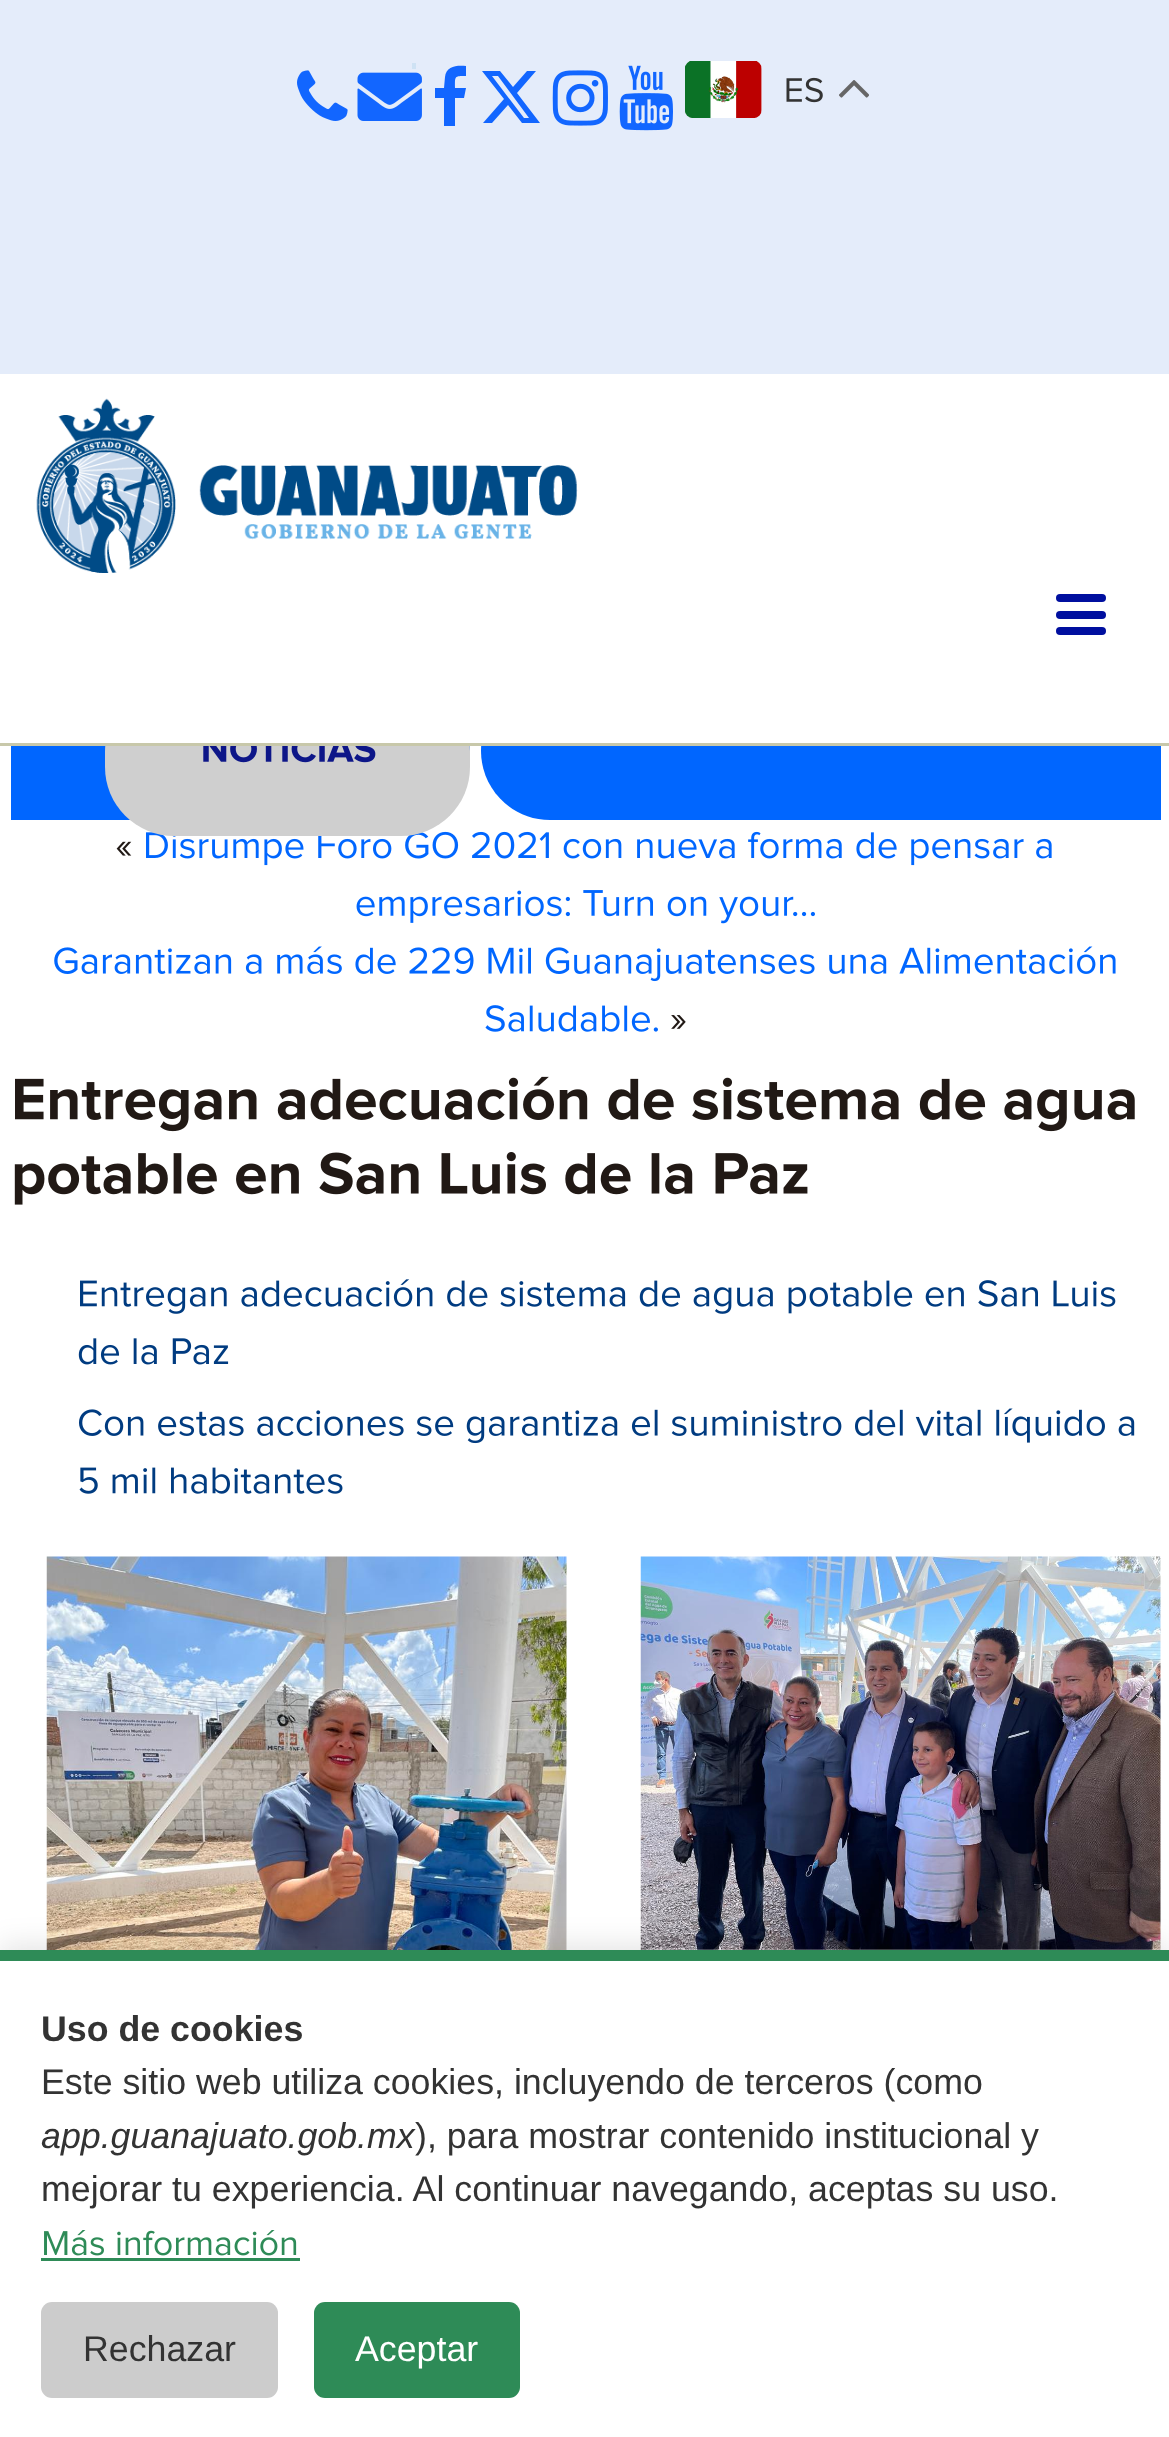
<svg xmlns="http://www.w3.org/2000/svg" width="1169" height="2437">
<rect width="100%" height="100%" fill="#fff"/>
<rect width="1169" height="374" fill="#e4ecfa"/>
<image x="297" y="70" width="51" height="51" href="media/1.png"/>
<image x="357" y="72" width="65" height="49" href="media/2.png"/>
<path d="M466 66v10c-12 0-11 0-11 12h11l-2 10h-9v28h-11v-28h-9v-10h9l1-11c1-11 12-12 21-11z" fill="#1266ff"/>
<path d="M527 71h9l-19 22l23 30h-18l-14-18l-16 18h-9l21-24l-22-28h18l13 16zm-3 47h5l-31-42h-6z" fill="#1266ff"/>
<image x="552" y="70" width="56" height="56" href="media/3.png"/>
<image x="619" y="65" width="54" height="66" href="media/4.png"/>
<image x="685" y="61" width="77" height="57" href="media/5.png"/>
<image x="786" y="77" width="37" height="26" href="media/6.png"/>
<image x="839" y="80" width="30" height="18" href="media/7.png"/>
<rect x="412" y="63" width="4" height="6" fill="#cee2f4"/>
<image x="36" y="398" width="542" height="175" href="media/8.png"/>
<path d="M11 682h390c38 0 69 31 69 69c0 38-31 69-69 69h-390z" fill="#06f"/>
<image x="146" y="831" width="906" height="35" href="media/11.png"/>
<rect x="105" y="682" width="365" height="154" rx="69" fill="#cfcfcf"/>
<path d="M550 682h611v138h-611c-38 0-69-31-69-69c0-38 31-69 69-69z" fill="#06f"/>
<rect x="11" y="682" width="1150" height="61" fill="#fff"/>
<rect y="743" width="1169" height="3" fill="#c8c8aa"/>
<rect x="1056" y="594" width="50" height="8" rx="4" fill="#000f9f"/>
<rect x="1056" y="611" width="50" height="8" rx="4" fill="#000f9f"/>
<rect x="1056" y="627" width="50" height="8" rx="4" fill="#000f9f"/>
<image x="203" y="746" width="173" height="17" href="media/9.png"/>
<image x="116" y="841" width="16" height="15" href="media/10.png"/>
<image x="356" y="890" width="459" height="34" href="media/12.png"/>
<image x="54" y="946" width="1062" height="36" href="media/13.png"/>
<image x="485" y="1005" width="173" height="27" href="media/14.png"/>
<image x="671" y="1015" width="15" height="14" href="media/15.png"/>
<image x="15" y="1076" width="1120" height="56" href="media/16.png"/>
<image x="14" y="1152" width="794" height="53" href="media/17.png"/>
<image x="80" y="1279" width="1036" height="35" href="media/18.png"/>
<image x="78" y="1338" width="151" height="27" href="media/19.png"/>
<image x="79" y="1408" width="1056" height="36" href="media/20.png"/>
<image x="79" y="1467" width="264" height="27" href="media/21.png"/>
<image x="46" y="1556" width="521" height="394" href="media/22.png"/>
<image x="640" y="1556" width="521" height="394" href="media/23.png"/>
<rect y="1944" width="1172" height="490" fill="#0000001a" filter="blur(14px)"/>
<rect y="1961" width="1169" height="476" fill="#fff"/>
<rect y="1950" width="1169" height="11" fill="#2e8b57"/>
<text x="41" y="2041" style="font-family:Liberation Sans;font-size:35.75px;font-weight:bold;fill:#333">Uso de cookies</text>
<text x="41" y="2094" style="font-family:Liberation Sans;font-size:35.75px;fill:#333">Este sitio web utiliza cookies, incluyendo de terceros (como</text>
<text x="41" y="2148" style="font-family:Liberation Sans;font-size:35.75px;font-style:italic;fill:#333">app.guanajuato.gob.mx</text>
<text x="415" y="2148" style="font-family:Liberation Sans;font-size:35.75px;fill:#333">), para mostrar contenido institucional y</text>
<text x="41" y="2201" style="font-family:Liberation Sans;font-size:35.75px;fill:#333">mejorar tu experiencia. Al continuar navegando, aceptas su uso.</text>
<image x="44" y="2230" width="253" height="26" href="media/24.png"/>
<rect x="41" y="2258" width="259" height="3" fill="#2e8b57"/>
<rect x="41" y="2302" width="237" height="96" rx="11" fill="#ccc"/>
<text x="83" y="2361" style="font-family:Liberation Sans;font-size:35.75px;fill:#333">Rechazar</text>
<rect x="314" y="2302" width="206" height="96" rx="11" fill="#2e8b57"/>
<text x="355" y="2361" style="font-family:Liberation Sans;font-size:35.75px;fill:#fff">Aceptar</text>
</svg>
